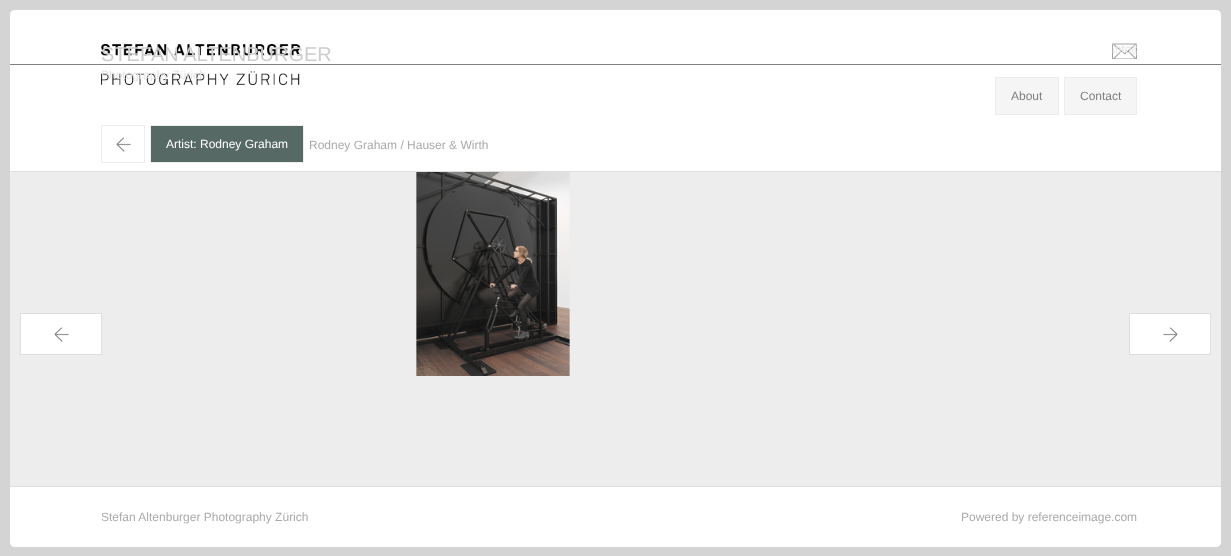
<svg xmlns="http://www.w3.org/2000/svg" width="1231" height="556">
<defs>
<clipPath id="clip1"><rect x="1112" y="43" width="25" height="16"/></clipPath>
</defs>
<rect width="100%" height="100%" fill="#d4d4d4"/>
<path d="M15 10h1201c3 0 5 2 5 5v157h-1211v-157c0-3 2-5 5-5z" fill="#fff"/>
<rect x="10" y="171" width="1211" height="1" fill="#dedede"/>
<image x="101" y="44" width="200" height="12" href="media/1.png"/>
<text x="101" y="61" style="font-family:Liberation Sans;font-size:20px;fill:#cdcdcd">STEFAN ALTENBURGER</text>
<image x="1112" y="43" width="25" height="16" href="media/2.png"/>
<g clip-path="url(#clip1)">
<text x="1112" y="53" style="font-family:Liberation Sans;font-size:12px;fill:#e4e4e4">info@</text>
</g>
<rect x="10" y="64" width="1211" height="1" fill="#808080"/>
<image x="101" y="71" width="199" height="14" href="media/3.png"/>
<text x="101" y="79" style="font-family:Liberation Sans;font-size:12px;fill:#e4e4e4">Photography Zürich</text>
<rect x="995.5" y="77.5" width="63" height="37" fill="#f5f5f5" stroke="#ededed"/>
<text x="1011" y="100" style="font-family:Liberation Sans;font-size:12px;fill:#808080">About</text>
<rect x="1064.5" y="77.5" width="72" height="37" fill="#f5f5f5" stroke="#ededed"/>
<text x="1080" y="100" style="font-family:Liberation Sans;font-size:12px;fill:#808080">Contact</text>
<image x="116" y="137" width="15" height="15" href="media/4.png"/>
<rect x="101.5" y="125.5" width="43" height="37" fill="none" stroke="#ededed"/>
<rect x="150.5" y="125.5" width="153" height="37" fill="#566965" stroke="#ededed"/>
<text x="166" y="148" style="font-family:Liberation Sans;font-size:12px;fill:#fff">Artist: Rodney Graham</text>
<text x="309" y="149" style="font-family:Liberation Sans;font-size:12px;fill:#aaa">Rodney Graham / Hauser &amp; Wirth</text>
<rect x="10" y="172" width="1211" height="314" fill="#ededed"/>
<rect x="21" y="314" width="80" height="40" fill="#fff"/>
<image x="54" y="327" width="15" height="15" href="media/4.png"/>
<rect x="20.5" y="313.5" width="81" height="41" fill="none" stroke="#dedede"/>
<rect x="1130" y="314" width="80" height="40" fill="#fff"/>
<image x="1163" y="327" width="15" height="15" href="media/5.png"/>
<rect x="1129.5" y="313.5" width="81" height="41" fill="none" stroke="#dedede"/>
<image x="416" y="172" width="154" height="204" href="media/6.png"/>
<path d="M10 486h1211v56c0 3-2 5-5 5h-1201c-3 0-5-2-5-5z" fill="#fff"/>
<rect x="10" y="486" width="1211" height="1" fill="#dedede"/>
<text x="101" y="521" style="font-family:Liberation Sans;font-size:12px;fill:#aaa">Stefan Altenburger Photography Zürich</text>
<text x="961" y="521" style="font-family:Liberation Sans;font-size:12px;fill:#aaa">Powered by referenceimage.com</text>
</svg>
